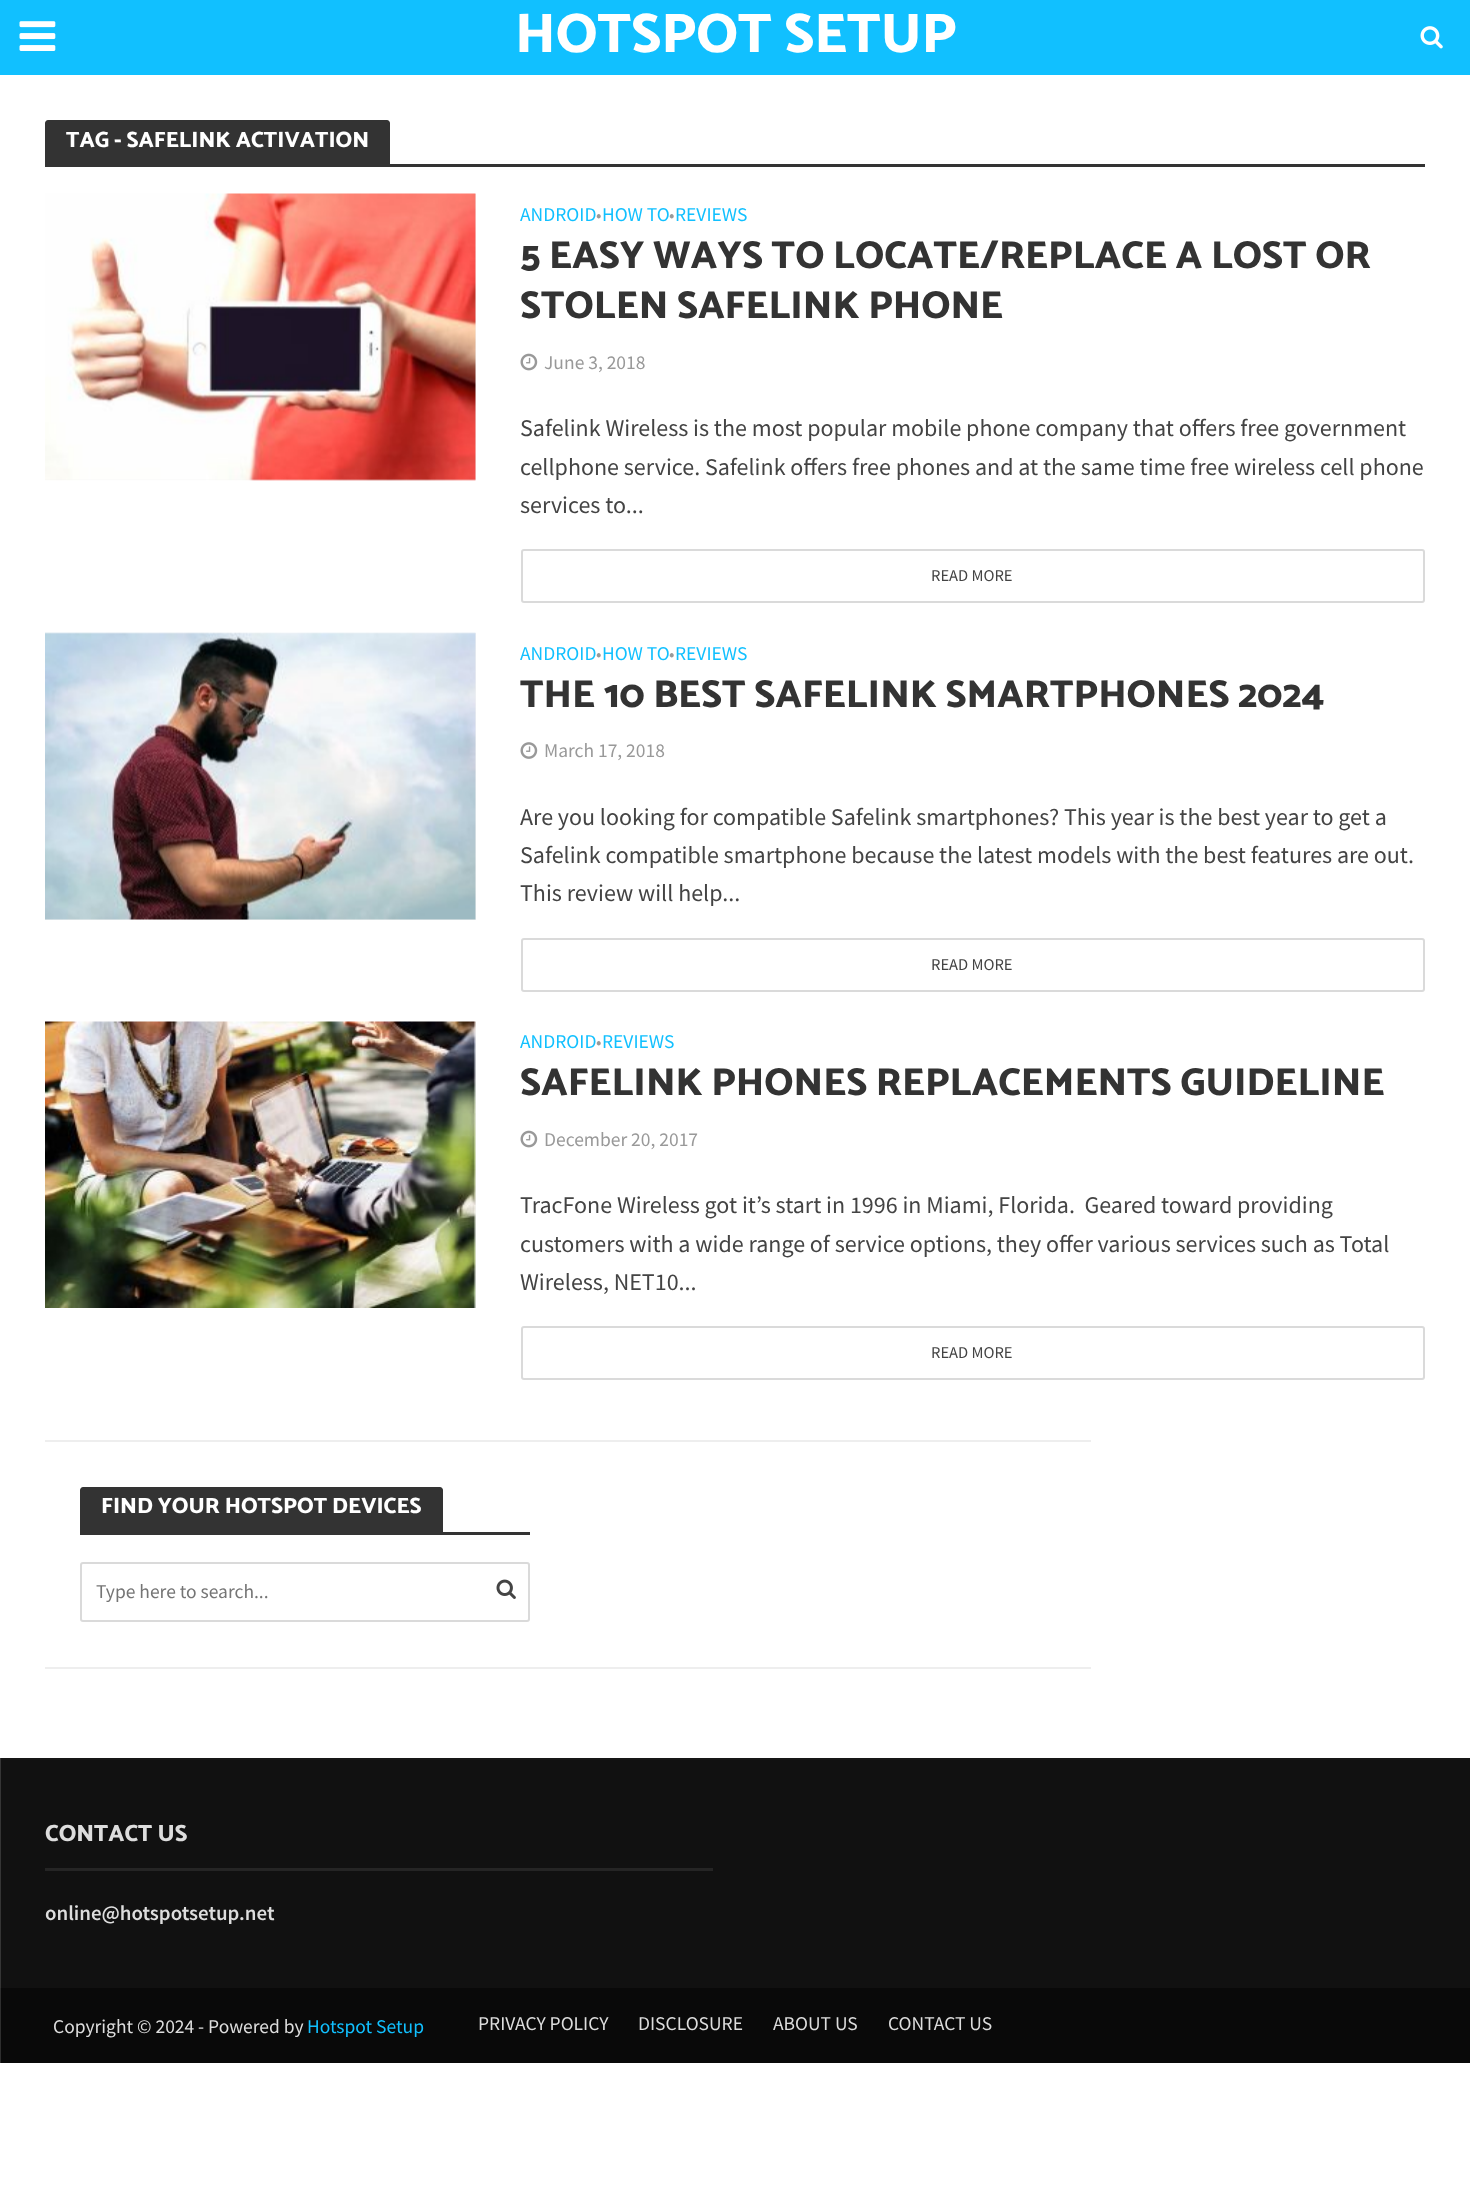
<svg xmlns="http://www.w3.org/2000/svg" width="1470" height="2208">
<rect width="100%" height="100%" fill="#fff"/>
<rect x="1" y="1758" width="1469" height="230" fill="#111"/>
<rect y="1758" width="1" height="230" fill="#353535"/>
<rect x="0" y="75" width="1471" height="1684" fill="none" stroke="#4444441a" stroke-width="2"/>
<rect width="1470" height="75" fill="#11c0ff"/>
<image x="19" y="21" width="37" height="30" href="media/1.png"/>
<text x="515" y="52" style="font-family:Catamaran;font-size:55.75px;font-weight:800;fill:#fff">HOTSPOT SETUP</text>
<image x="1420" y="26" width="23" height="23" href="media/2.png"/>
<rect y="75" width="1470" height="1683" fill="#fff"/>
<path d="M48 120h339c1.5 0 3 1.5 3 3v41h-345v-41c0-1.5 1.5-3 3-3z" fill="#333"/>
<text x="66" y="147" style="font-family:Catamaran;font-size:22.25px;font-weight:800;fill:#fff">TAG - SAFELINK ACTIVATION</text>
<rect x="45" y="164" width="1380" height="3" fill="#333"/>
<rect x="45" y="194" width="431" height="286" fill="#f3f3f3"/>
<image x="45" y="193" width="431" height="288" href="media/3.png"/>
<text x="520" y="221" style="font-family:Source Sans Pro;font-size:19.5px;fill:#11c0ff">ANDROID</text>
<text x="596" y="221" style="font-family:Source Sans Pro;font-size:18px;fill:#999">•</text>
<text x="602" y="221" style="font-family:Source Sans Pro;font-size:19.5px;fill:#11c0ff">HOW TO</text>
<text x="669" y="221" style="font-family:Source Sans Pro;font-size:18px;fill:#999">•</text>
<text x="675" y="221" style="font-family:Source Sans Pro;font-size:19.5px;fill:#11c0ff">REVIEWS</text>
<text x="520" y="268" style="font-family:Catamaran;font-size:39px;font-weight:800;fill:#333">5 EASY WAYS TO LOCATE/REPLACE A LOST OR</text>
<text x="520" y="318" style="font-family:Catamaran;font-size:39px;font-weight:800;fill:#333">STOLEN SAFELINK PHONE</text>
<image x="520" y="353" width="18" height="18" href="media/4.png"/>
<text x="544" y="369" style="font-family:Source Sans Pro;font-size:19.5px;fill:#999">June 3, 2018</text>
<text x="520" y="436" style="font-family:Source Sans Pro;font-size:24px;fill:#444">Safelink Wireless is the most popular mobile phone company that offers free government</text>
<text x="520" y="475" style="font-family:Source Sans Pro;font-size:24px;fill:#444">cellphone service. Safelink offers free phones and at the same time free wireless cell phone</text>
<text x="520" y="513" style="font-family:Source Sans Pro;font-size:24px;fill:#444">services to...</text>
<rect x="522" y="550" width="902" height="52" rx="2" fill="none" stroke="#dadada" stroke-width="2"/>
<text x="931" y="581" style="font-family:Source Sans Pro;font-size:16.5px;fill:#444">READ MORE</text>
<rect x="45" y="633" width="431" height="287" fill="#f3f3f3"/>
<image x="45" y="632" width="431" height="288" href="media/5.png"/>
<text x="520" y="660" style="font-family:Source Sans Pro;font-size:19.5px;fill:#11c0ff">ANDROID</text>
<text x="596" y="660" style="font-family:Source Sans Pro;font-size:18px;fill:#999">•</text>
<text x="602" y="660" style="font-family:Source Sans Pro;font-size:19.5px;fill:#11c0ff">HOW TO</text>
<text x="669" y="660" style="font-family:Source Sans Pro;font-size:18px;fill:#999">•</text>
<text x="675" y="660" style="font-family:Source Sans Pro;font-size:19.5px;fill:#11c0ff">REVIEWS</text>
<text x="520" y="707" style="font-family:Catamaran;font-size:39px;font-weight:800;fill:#333">THE 10 BEST SAFELINK SMARTPHONES 2024</text>
<image x="520" y="742" width="18" height="17" href="media/6.png"/>
<text x="544" y="757" style="font-family:Source Sans Pro;font-size:19.5px;fill:#999">March 17, 2018</text>
<text x="520" y="825" style="font-family:Source Sans Pro;font-size:24px;fill:#444">Are you looking for compatible Safelink smartphones? This year is the best year to get a</text>
<text x="520" y="863" style="font-family:Source Sans Pro;font-size:24px;fill:#444">Safelink compatible smartphone because the latest models with the best features are out.</text>
<text x="520" y="901" style="font-family:Source Sans Pro;font-size:24px;fill:#444">This review will help...</text>
<rect x="522" y="939" width="902" height="52" rx="2" fill="none" stroke="#dadada" stroke-width="2"/>
<text x="931" y="970" style="font-family:Source Sans Pro;font-size:16.5px;fill:#444">READ MORE</text>
<rect x="475" y="1022" width="1" height="286" fill="#f3f3f3"/>
<image x="45" y="1021" width="431" height="287" href="media/7.png"/>
<text x="520" y="1048" style="font-family:Source Sans Pro;font-size:19.5px;fill:#11c0ff">ANDROID</text>
<text x="596" y="1048" style="font-family:Source Sans Pro;font-size:18px;fill:#999">•</text>
<text x="602" y="1048" style="font-family:Source Sans Pro;font-size:19.5px;fill:#11c0ff">REVIEWS</text>
<text x="520" y="1095" style="font-family:Catamaran;font-size:39px;font-weight:800;fill:#333">SAFELINK PHONES REPLACEMENTS GUIDELINE</text>
<image x="520" y="1130" width="18" height="18" href="media/4.png"/>
<text x="544" y="1146" style="font-family:Source Sans Pro;font-size:19.5px;fill:#999">December 20, 2017</text>
<text x="520" y="1213" style="font-family:Source Sans Pro;font-size:24px;fill:#444" xml:space="preserve">TracFone Wireless got it’s start in 1996 in Miami, Florida.  Geared toward providing</text>
<text x="520" y="1252" style="font-family:Source Sans Pro;font-size:24px;fill:#444">customers with a wide range of service options, they offer various services such as Total</text>
<text x="520" y="1290" style="font-family:Source Sans Pro;font-size:24px;fill:#444">Wireless, NET10...</text>
<rect x="522" y="1327" width="902" height="52" rx="2" fill="none" stroke="#dadada" stroke-width="2"/>
<text x="931" y="1358" style="font-family:Source Sans Pro;font-size:16.5px;fill:#444">READ MORE</text>
<rect x="45" y="1440" width="1046" height="2" fill="#eee"/>
<rect x="45" y="1667" width="1046" height="2" fill="#eee"/>
<path d="M83 1487h357c1.5 0 3 1.5 3 3v42h-363v-42c0-1.5 1.5-3 3-3z" fill="#333"/>
<text x="101" y="1513" style="font-family:Catamaran;font-size:22.25px;font-weight:800;fill:#fff">FIND YOUR HOTSPOT DEVICES</text>
<rect x="80" y="1532" width="450" height="3" fill="#333"/>
<rect x="81" y="1563" width="448" height="58" rx="2" fill="none" stroke="#dadada" stroke-width="2"/>
<text x="96" y="1598" style="font-family:Source Sans Pro;font-size:19.5px;fill:#757575">Type here to search...</text>
<image x="496" y="1579" width="20" height="20" href="media/8.png"/>
<text x="45" y="1841" style="font-family:Catamaran;font-size:23.5px;font-weight:800;fill:#ddd">CONTACT US</text>
<rect x="45" y="1868" width="668" height="3" fill="#252525"/>
<text x="45" y="1920" style="font-family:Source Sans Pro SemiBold;font-size:20.9px;font-weight:600;fill:#ddd">online@hotspotsetup.net</text>
<rect x="1" y="1988" width="1469" height="75" fill="#090909"/>
<rect y="1988" width="1" height="75" fill="#2e2e2e"/>
<text x="53" y="2033" style="font-family:Source Sans Pro;font-size:19.5px;fill:#ddd">Copyright © 2024 - Powered by</text>
<text x="307" y="2033" style="font-family:Source Sans Pro;font-size:19.5px;fill:#11c0ff">Hotspot Setup</text>
<text x="478" y="2030" style="font-family:Source Sans Pro;font-size:19.5px;fill:#ddd">PRIVACY POLICY</text>
<text x="638" y="2030" style="font-family:Source Sans Pro;font-size:19.5px;fill:#ddd">DISCLOSURE</text>
<text x="773" y="2030" style="font-family:Source Sans Pro;font-size:19.5px;fill:#ddd">ABOUT US</text>
<text x="888" y="2030" style="font-family:Source Sans Pro;font-size:19.5px;fill:#ddd">CONTACT US</text>
</svg>
